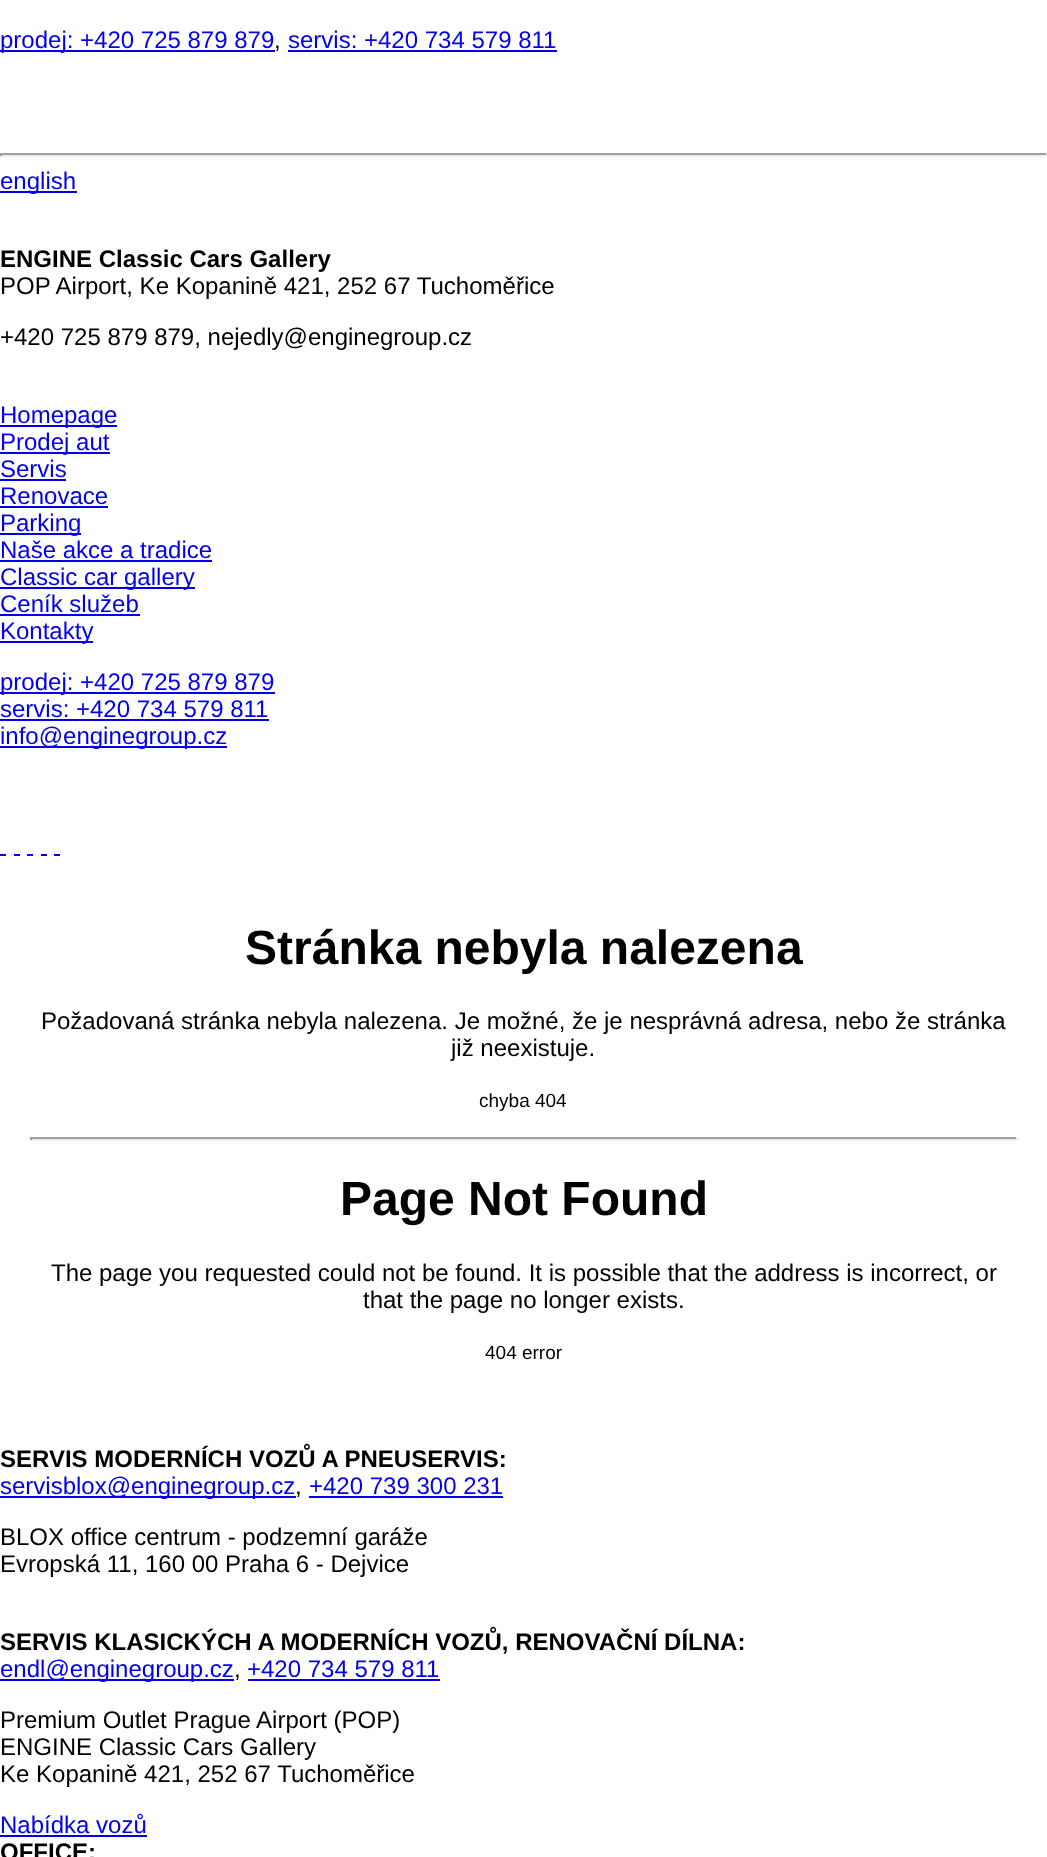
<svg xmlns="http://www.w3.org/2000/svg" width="1047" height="1857">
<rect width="100%" height="100%" fill="#fff"/>
<rect y="50" width="275" height="2" fill="#00e"/>
<text x="0" y="48" style="font-family:Liberation Sans;font-size:24px;fill:#00e">prodej: +420 725 879 879</text>
<text x="274" y="48" style="font-family:Liberation Sans;font-size:24px;fill:#000">,</text>
<text x="288" y="48" style="font-family:Liberation Sans;font-size:24px;fill:#00e">servis: +420 734 579 811</text>
<rect x="288" y="50" width="269" height="2" fill="#00e"/>
<rect y="153" width="1047" height="2" fill="#9f9f9f"/>
<rect x="1046" y="153" width="1" height="3" fill="#eee"/>
<rect y="155" width="1047" height="2" fill="#eee"/>
<rect y="153" width="2" height="3" fill="#9f9f9f"/>
<rect y="191" width="77" height="2" fill="#00e"/>
<text x="0" y="189" style="font-family:Liberation Sans;font-size:24px;fill:#00e">english</text>
<text x="0" y="267" style="font-family:Liberation Sans;font-size:24px;font-weight:bold;fill:#000">ENGINE Classic Cars Gallery</text>
<text x="0" y="294" style="font-family:Liberation Sans;font-size:24px;fill:#000">POP Airport, Ke Kopanině 421, 252 67 Tuchoměřice</text>
<text x="0" y="345" style="font-family:Liberation Sans;font-size:24px;fill:#000">+420 725 879 879, nejedly@enginegroup.cz</text>
<rect y="425" width="117" height="2" fill="#00e"/>
<text x="0" y="423" style="font-family:Liberation Sans;font-size:24px;fill:#00e">Homepage</text>
<rect y="452" width="110" height="2" fill="#00e"/>
<text x="0" y="450" style="font-family:Liberation Sans;font-size:24px;fill:#00e">Prodej aut</text>
<text x="0" y="477" style="font-family:Liberation Sans;font-size:24px;fill:#00e">Servis</text>
<rect y="479" width="66" height="2" fill="#00e"/>
<text x="0" y="504" style="font-family:Liberation Sans;font-size:24px;fill:#00e">Renovace</text>
<rect y="506" width="108" height="2" fill="#00e"/>
<rect y="533" width="81" height="2" fill="#00e"/>
<text x="0" y="531" style="font-family:Liberation Sans;font-size:24px;fill:#00e">Parking</text>
<text x="0" y="558" style="font-family:Liberation Sans;font-size:24px;fill:#00e">Naše akce a tradice</text>
<rect y="560" width="212" height="2" fill="#00e"/>
<rect y="587" width="195" height="2" fill="#00e"/>
<text x="0" y="585" style="font-family:Liberation Sans;font-size:24px;fill:#00e">Classic car gallery</text>
<text x="0" y="612" style="font-family:Liberation Sans;font-size:24px;fill:#00e">Ceník služeb</text>
<rect y="614" width="140" height="2" fill="#00e"/>
<rect y="641" width="93" height="2" fill="#00e"/>
<text x="0" y="639" style="font-family:Liberation Sans;font-size:24px;fill:#00e">Kontakty</text>
<rect y="692" width="275" height="2" fill="#00e"/>
<text x="0" y="690" style="font-family:Liberation Sans;font-size:24px;fill:#00e">prodej: +420 725 879 879</text>
<text x="0" y="717" style="font-family:Liberation Sans;font-size:24px;fill:#00e">servis: +420 734 579 811</text>
<rect y="719" width="269" height="2" fill="#00e"/>
<rect y="746" width="227" height="2" fill="#00e"/>
<text x="0" y="744" style="font-family:Liberation Sans;font-size:24px;fill:#00e">info@enginegroup.cz</text>
<rect y="854" width="6" height="2" fill="#00e"/>
<rect x="14" y="854" width="6" height="2" fill="#00e"/>
<rect x="27" y="854" width="6" height="2" fill="#00e"/>
<rect x="41" y="854" width="6" height="2" fill="#00e"/>
<rect x="54" y="854" width="6" height="2" fill="#00e"/>
<text x="245" y="964" style="font-family:Liberation Sans;font-size:48px;font-weight:bold;fill:#000">Stránka nebyla nalezena</text>
<text x="41" y="1029" style="font-family:Liberation Sans;font-size:24px;fill:#000">Požadovaná stránka nebyla nalezena. Je možné, že je nesprávná adresa, nebo že stránka</text>
<text x="451" y="1056" style="font-family:Liberation Sans;font-size:24px;fill:#000">již neexistuje.</text>
<text x="479" y="1107" style="font-family:Liberation Sans;font-size:19px;fill:#000">chyba 404</text>
<rect x="30" y="1137" width="987" height="2" fill="#9f9f9f"/>
<rect x="1016" y="1137" width="2" height="3" fill="#eee"/>
<rect x="30" y="1139" width="987" height="2" fill="#eee"/>
<rect x="30" y="1137" width="2" height="3" fill="#9f9f9f"/>
<text x="340" y="1215" style="font-family:Liberation Sans;font-size:48px;font-weight:bold;fill:#000">Page Not Found</text>
<text x="51" y="1281" style="font-family:Liberation Sans;font-size:24px;fill:#000">The page you requested could not be found. It is possible that the address is incorrect, or</text>
<text x="363" y="1308" style="font-family:Liberation Sans;font-size:24px;fill:#000">that the page no longer exists.</text>
<text x="485" y="1359" style="font-family:Liberation Sans;font-size:19px;fill:#000">404 error</text>
<text x="0" y="1467" style="font-family:Liberation Sans;font-size:24px;font-weight:bold;fill:#000">SERVIS MODERNÍCH VOZŮ A PNEUSERVIS:</text>
<rect y="1496" width="296" height="2" fill="#00e"/>
<text x="0" y="1494" style="font-family:Liberation Sans;font-size:24px;fill:#00e">servisblox@enginegroup.cz</text>
<text x="295" y="1494" style="font-family:Liberation Sans;font-size:24px;fill:#000">,</text>
<text x="309" y="1494" style="font-family:Liberation Sans;font-size:24px;fill:#00e">+420 739 300 231</text>
<rect x="309" y="1496" width="194" height="2" fill="#00e"/>
<text x="0" y="1545" style="font-family:Liberation Sans;font-size:24px;fill:#000">BLOX office centrum - podzemní garáže</text>
<text x="0" y="1572" style="font-family:Liberation Sans;font-size:24px;fill:#000">Evropská 11, 160 00 Praha 6 - Dejvice</text>
<text x="0" y="1650" style="font-family:Liberation Sans;font-size:24px;font-weight:bold;fill:#000">SERVIS KLASICKÝCH A MODERNÍCH VOZŮ, RENOVAČNÍ DÍLNA:</text>
<rect y="1679" width="234" height="2" fill="#00e"/>
<text x="0" y="1677" style="font-family:Liberation Sans;font-size:24px;fill:#00e">endl@enginegroup.cz</text>
<text x="234" y="1677" style="font-family:Liberation Sans;font-size:24px;fill:#000">,</text>
<text x="247" y="1677" style="font-family:Liberation Sans;font-size:24px;fill:#00e">+420 734 579 811</text>
<rect x="248" y="1679" width="192" height="2" fill="#00e"/>
<text x="0" y="1728" style="font-family:Liberation Sans;font-size:24px;fill:#000">Premium Outlet Prague Airport (POP)</text>
<text x="0" y="1755" style="font-family:Liberation Sans;font-size:24px;fill:#000">ENGINE Classic Cars Gallery</text>
<text x="0" y="1782" style="font-family:Liberation Sans;font-size:24px;fill:#000">Ke Kopanině 421, 252 67 Tuchoměřice</text>
<text x="0" y="1833" style="font-family:Liberation Sans;font-size:24px;fill:#00e">Nabídka vozů</text>
<rect y="1835" width="147" height="2" fill="#00e"/>
<text x="0" y="1860" style="font-family:Liberation Sans;font-size:24px;font-weight:bold;fill:#000">OFFICE:</text>
</svg>
